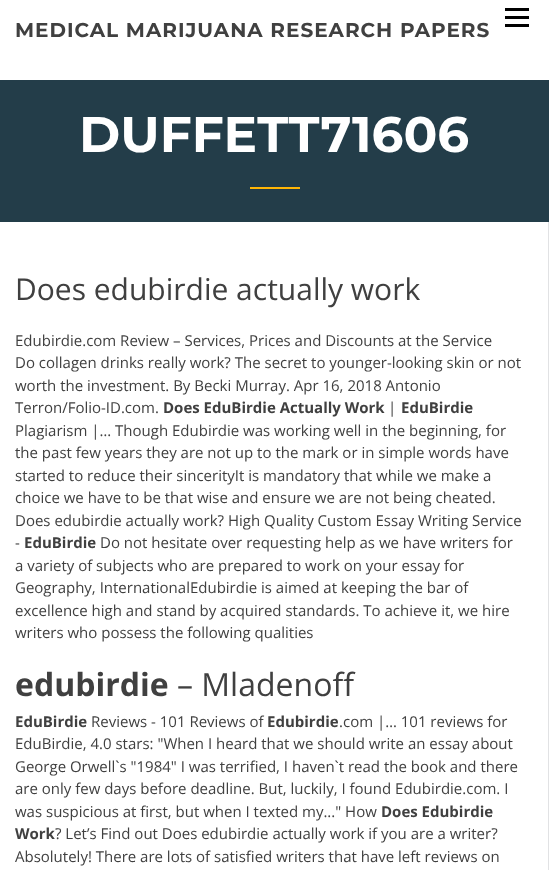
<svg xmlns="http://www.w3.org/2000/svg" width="549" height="870">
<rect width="100%" height="100%" fill="#fff"/>
<rect x="505" y="16" width="24" height="3" fill="#000"/>
<rect x="505" y="8" width="24" height="3" fill="#000"/>
<rect x="505" y="24" width="24" height="3" fill="#000"/>
<text x="15" y="37" style="font-family:Montserrat;font-size:20px;font-weight:bold;letter-spacing:1px;fill:#404040">MEDICAL MARIJUANA RESEARCH PAPERS</text>
<rect y="80" width="549" height="142" fill="#233d49"/>
<text x="79" y="152" style="font-family:Montserrat;font-size:50px;font-weight:bold;fill:#fff">DUFFETT71606</text>
<rect x="250" y="187" width="50" height="2" fill="#ffb606"/>
<rect x="548" y="222" width="1" height="648" fill="#e1e2e4"/>
<text x="15" y="300" style="font-family:Open Sans;font-size:30px;fill:#404040">Does edubirdie actually work</text>
<text x="15" y="346" style="font-family:Open Sans;font-size:15px;fill:#404040">Edubirdie.com Review – Services, Prices and Discounts at the Service</text>
<text x="15" y="368" style="font-family:Open Sans;font-size:15px;fill:#404040">Do collagen drinks really work? The secret to younger-looking skin or not</text>
<text x="15" y="391" style="font-family:Open Sans;font-size:15px;fill:#404040">worth the investment. By Becki Murray. Apr 16, 2018 Antonio</text>
<text x="15" y="413" style="font-family:Open Sans;font-size:15px;fill:#404040">Terron/Folio-ID.com.</text>
<text x="163" y="413" style="font-family:Open Sans;font-size:15px;font-weight:bold;fill:#404040">Does EduBirdie Actually Work</text>
<text x="388" y="413" style="font-family:Open Sans;font-size:15px;fill:#404040">|</text>
<text x="401" y="413" style="font-family:Open Sans;font-size:15px;font-weight:bold;fill:#404040">EduBirdie</text>
<text x="15" y="436" style="font-family:Open Sans;font-size:15px;fill:#404040">Plagiarism |… Though Edubirdie was working well in the beginning, for</text>
<text x="15" y="458" style="font-family:Open Sans;font-size:15px;fill:#404040">the past few years they are not up to the mark or in simple words have</text>
<text x="15" y="481" style="font-family:Open Sans;font-size:15px;fill:#404040">started to reduce their sincerityIt is mandatory that while we make a</text>
<text x="15" y="503" style="font-family:Open Sans;font-size:15px;fill:#404040">choice we have to be that wise and ensure we are not being cheated.</text>
<text x="15" y="526" style="font-family:Open Sans;font-size:15px;fill:#404040">Does edubirdie actually work? High Quality Custom Essay Writing Service</text>
<text x="15" y="548" style="font-family:Open Sans;font-size:15px;fill:#404040">-</text>
<text x="24" y="548" style="font-family:Open Sans;font-size:15px;font-weight:bold;fill:#404040">EduBirdie</text>
<text x="100" y="548" style="font-family:Open Sans;font-size:15px;fill:#404040">Do not hesitate over requesting help as we have writers for</text>
<text x="15" y="571" style="font-family:Open Sans;font-size:15px;fill:#404040">a variety of subjects who are prepared to work on your essay for</text>
<text x="15" y="593" style="font-family:Open Sans;font-size:15px;fill:#404040">Geography, InternationalEdubirdie is aimed at keeping the bar of</text>
<text x="15" y="616" style="font-family:Open Sans;font-size:15px;fill:#404040">excellence high and stand by acquired standards. To achieve it, we hire</text>
<text x="15" y="638" style="font-family:Open Sans;font-size:15px;fill:#404040">writers who possess the following qualities</text>
<text x="15" y="696" style="font-family:Open Sans;font-size:32px;font-weight:bold;fill:#404040">edubirdie</text>
<text x="177" y="696" style="font-family:Open Sans;font-size:32px;fill:#404040">– Mladenoff</text>
<text x="15" y="727" style="font-family:Open Sans;font-size:15px;font-weight:bold;fill:#404040">EduBirdie</text>
<text x="91" y="727" style="font-family:Open Sans;font-size:15px;fill:#404040">Reviews - 101 Reviews of</text>
<text x="267" y="727" style="font-family:Open Sans;font-size:15px;font-weight:bold;fill:#404040">Edubirdie</text>
<text x="339" y="727" style="font-family:Open Sans;font-size:15px;fill:#404040">.com |… 101 reviews for</text>
<text x="15" y="749" style="font-family:Open Sans;font-size:15px;fill:#404040">EduBirdie, 4.0 stars: "When I heard that we should write an essay about</text>
<text x="15" y="772" style="font-family:Open Sans;font-size:15px;fill:#404040">George Orwell`s "1984" I was terrified, I haven`t read the book and there</text>
<text x="15" y="794" style="font-family:Open Sans;font-size:15px;fill:#404040">are only few days before deadline. But, luckily, I found Edubirdie.com. I</text>
<text x="15" y="817" style="font-family:Open Sans;font-size:15px;fill:#404040">was suspicious at first, but when I texted my..." How</text>
<text x="381" y="817" style="font-family:Open Sans;font-size:15px;font-weight:bold;fill:#404040">Does Edubirdie</text>
<text x="15" y="839" style="font-family:Open Sans;font-size:15px;font-weight:bold;fill:#404040">Work</text>
<text x="55" y="839" style="font-family:Open Sans;font-size:15px;fill:#404040">? Let’s Find out Does edubirdie actually work if you are a writer?</text>
<text x="15" y="862" style="font-family:Open Sans;font-size:15px;fill:#404040">Absolutely! There are lots of satisfied writers that have left reviews on</text>
</svg>
